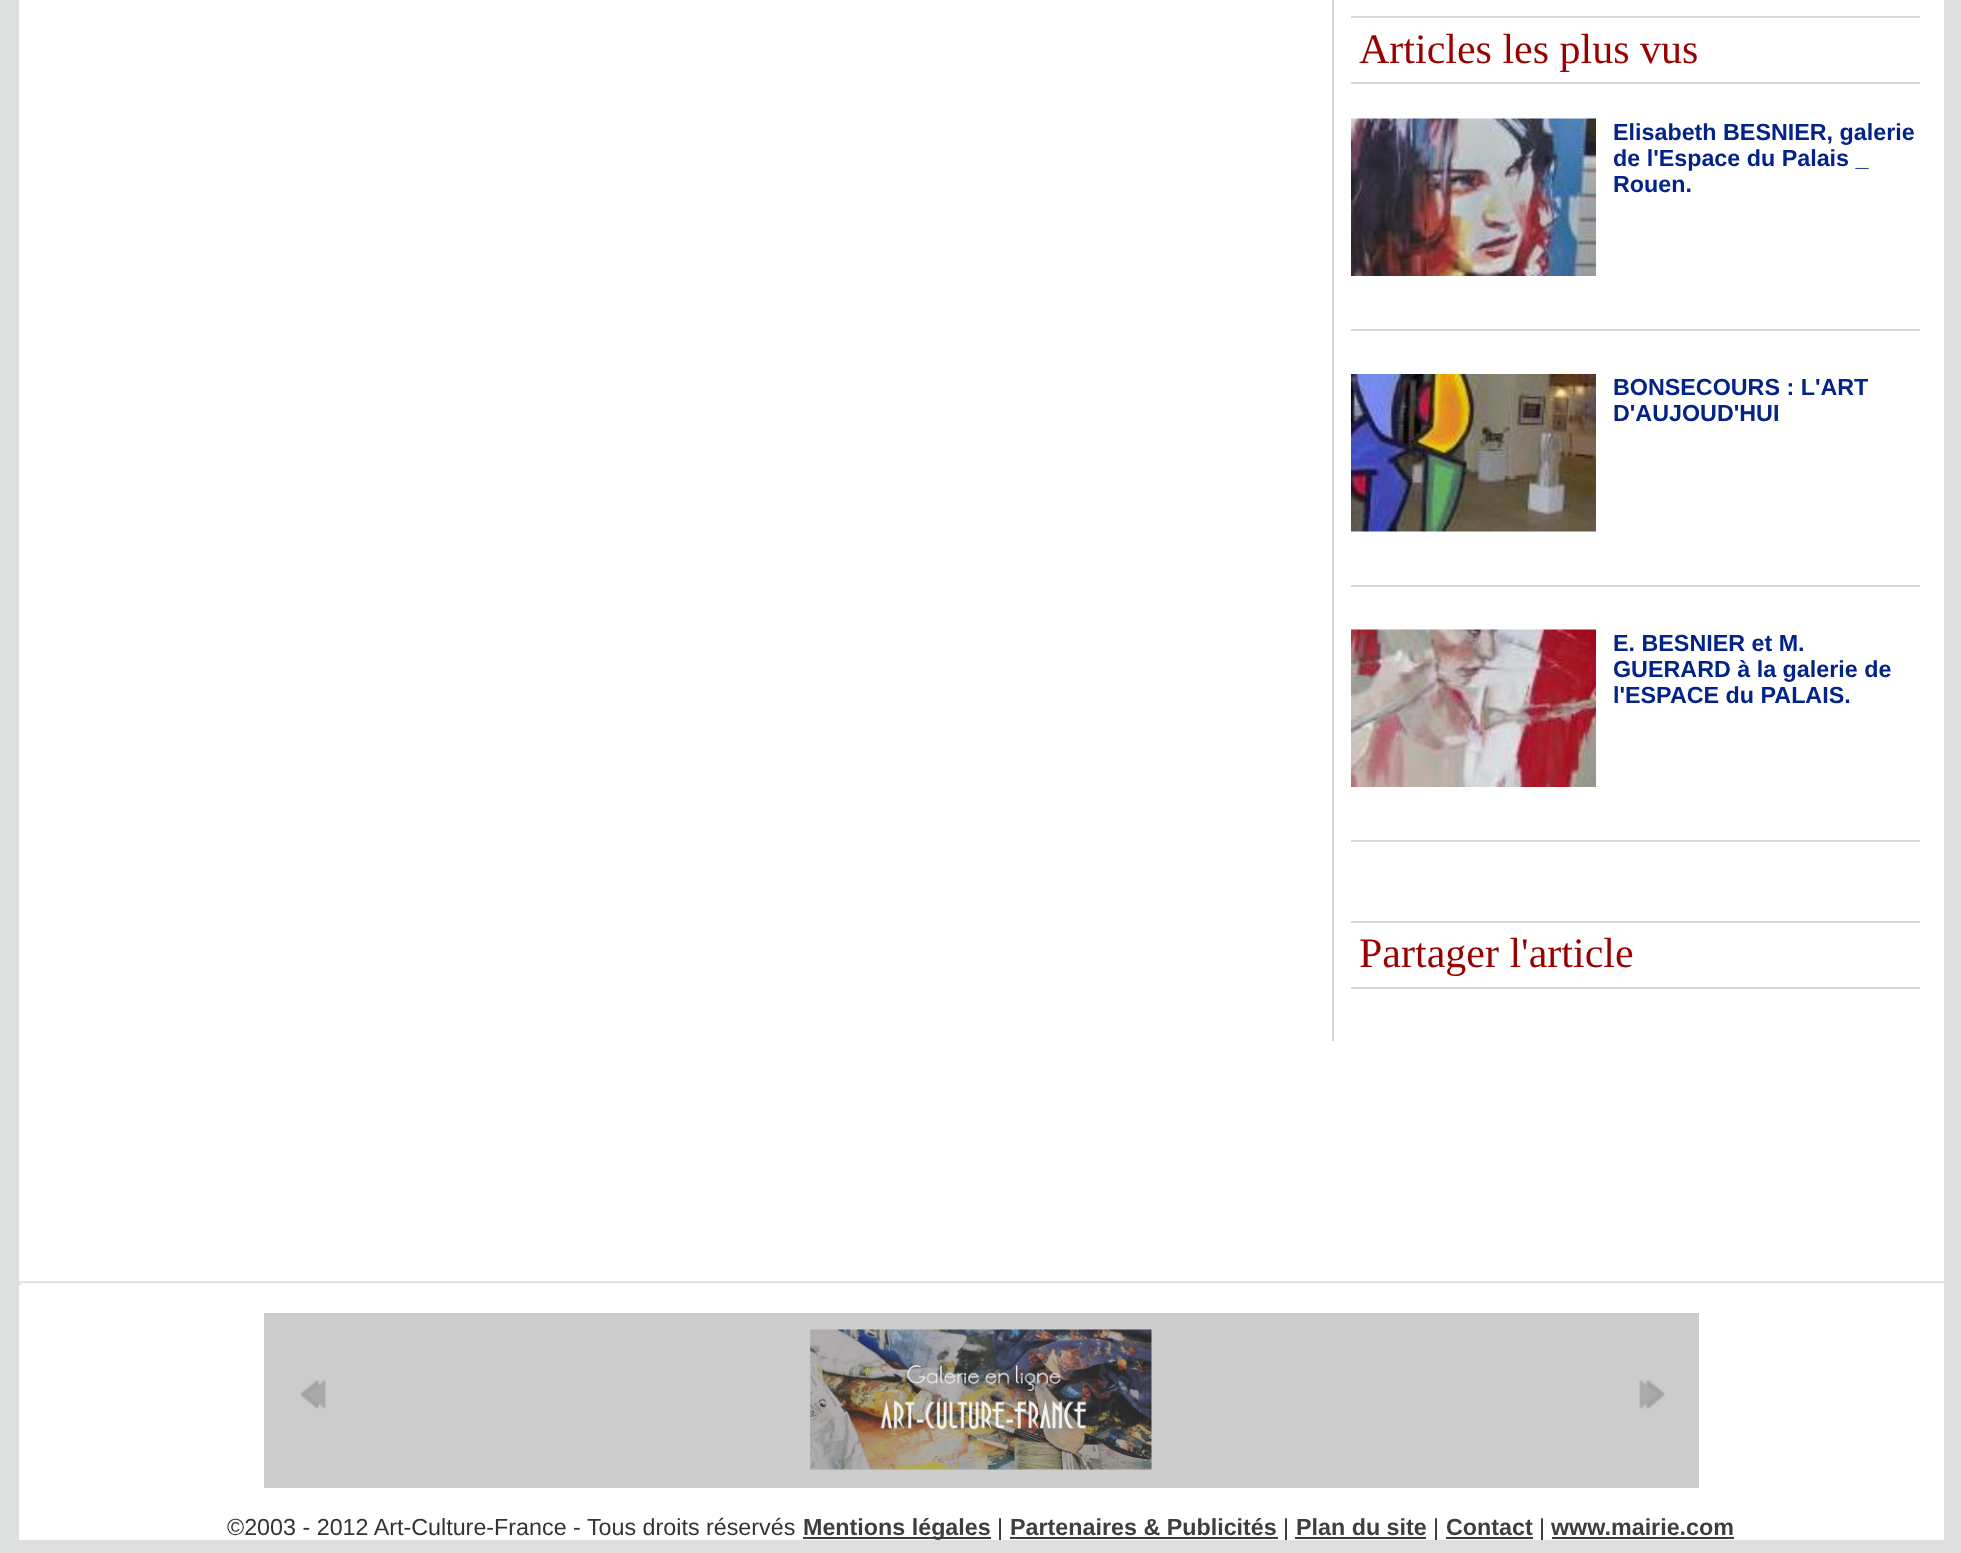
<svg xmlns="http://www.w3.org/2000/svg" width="1961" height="1553">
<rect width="100%" height="100%" fill="#dee0e0"/>
<rect x="1944" y="1281" width="1" height="4" fill="#e3e4e4"/>
<rect x="19" width="1925" height="1540" fill="#fff"/>
<rect x="1332" width="2" height="1041" fill="#d8d8d8"/>
<rect x="1351" y="16" width="569" height="2" fill="#d8d8d8"/>
<rect x="1351" y="82" width="569" height="2" fill="#d8d8d8"/>
<text x="1359" y="63" style="font-family:Liberation Serif;font-size:42px;fill:#900">Articles les plus vus</text>
<image x="1351" y="118" width="245" height="158" href="media/1.png"/>
<rect x="1351" y="329" width="569" height="2" fill="#d8d8d8"/>
<text x="1613" y="140" style="font-family:Liberation Sans;font-size:23.3px;font-weight:bold;fill:#022387">Elisabeth BESNIER, galerie</text>
<text x="1613" y="166" style="font-family:Liberation Sans;font-size:23.3px;font-weight:bold;fill:#022387">de l'Espace du Palais _</text>
<text x="1613" y="192" style="font-family:Liberation Sans;font-size:23.3px;font-weight:bold;fill:#022387">Rouen.</text>
<image x="1351" y="374" width="245" height="158" href="media/2.png"/>
<rect x="1351" y="585" width="569" height="2" fill="#d8d8d8"/>
<text x="1613" y="395" style="font-family:Liberation Sans;font-size:23.3px;font-weight:bold;fill:#022387">BONSECOURS : L'ART</text>
<text x="1613" y="421" style="font-family:Liberation Sans;font-size:23.3px;font-weight:bold;fill:#022387">D'AUJOUD'HUI</text>
<image x="1351" y="629" width="245" height="158" href="media/3.png"/>
<rect x="1351" y="840" width="569" height="2" fill="#d8d8d8"/>
<text x="1613" y="651" style="font-family:Liberation Sans;font-size:23.3px;font-weight:bold;fill:#022387">E. BESNIER et M.</text>
<text x="1613" y="677" style="font-family:Liberation Sans;font-size:23.3px;font-weight:bold;fill:#022387">GUERARD à la galerie de</text>
<text x="1613" y="703" style="font-family:Liberation Sans;font-size:23.3px;font-weight:bold;fill:#022387">l'ESPACE du PALAIS.</text>
<rect x="1351" y="921" width="569" height="2" fill="#d8d8d8"/>
<rect x="1351" y="987" width="569" height="2" fill="#d8d8d8"/>
<text x="1359" y="967" style="font-family:Liberation Serif;font-size:42px;fill:#900">Partager l'article</text>
<rect x="19" y="1281" width="1925" height="2" fill="#e2e2e2"/>
<rect x="1943" y="1281" width="1" height="2" fill="#e6e6e6"/>
<rect x="19" y="1283" width="1925" height="2" fill="#fafafa"/>
<rect x="19" y="1281" width="2" height="4" fill="#e2e2e2"/>
<rect x="264" y="1313" width="1435" height="175" fill="#ccc"/>
<image x="300" y="1380" width="26" height="29" href="media/4.png"/>
<image x="810" y="1329" width="342" height="141" href="media/5.png"/>
<image x="1639" y="1380" width="26" height="29" href="media/6.png"/>
<text x="227" y="1535" style="font-family:Liberation Sans;font-size:23.3px;fill:#333">©2003 - 2012 Art-Culture-France - Tous droits réservés</text>
<rect x="803" y="1537" width="188" height="2" fill="#3e3e3e"/>
<text x="803" y="1535" style="font-family:Liberation Sans;font-size:23.3px;font-weight:bold;fill:#3e3e3e">Mentions légales</text>
<text x="997" y="1535" style="font-family:Liberation Sans;font-size:23.3px;fill:#333">|</text>
<text x="1010" y="1535" style="font-family:Liberation Sans;font-size:23.3px;font-weight:bold;fill:#3e3e3e">Partenaires &amp; Publicités</text>
<rect x="1010" y="1537" width="268" height="2" fill="#3e3e3e"/>
<text x="1283" y="1535" style="font-family:Liberation Sans;font-size:23.3px;fill:#333">|</text>
<text x="1296" y="1535" style="font-family:Liberation Sans;font-size:23.3px;font-weight:bold;fill:#3e3e3e">Plan du site</text>
<rect x="1295" y="1537" width="131" height="2" fill="#3e3e3e"/>
<text x="1433" y="1535" style="font-family:Liberation Sans;font-size:23.3px;fill:#333">|</text>
<text x="1446" y="1535" style="font-family:Liberation Sans;font-size:23.3px;font-weight:bold;fill:#3e3e3e">Contact</text>
<rect x="1446" y="1537" width="87" height="2" fill="#3e3e3e"/>
<text x="1539" y="1535" style="font-family:Liberation Sans;font-size:23.3px;fill:#333">|</text>
<text x="1551" y="1535" style="font-family:Liberation Sans;font-size:23.3px;font-weight:bold;fill:#3e3e3e">www.mairie.com</text>
<rect x="1552" y="1537" width="182" height="2" fill="#3e3e3e"/>
</svg>
